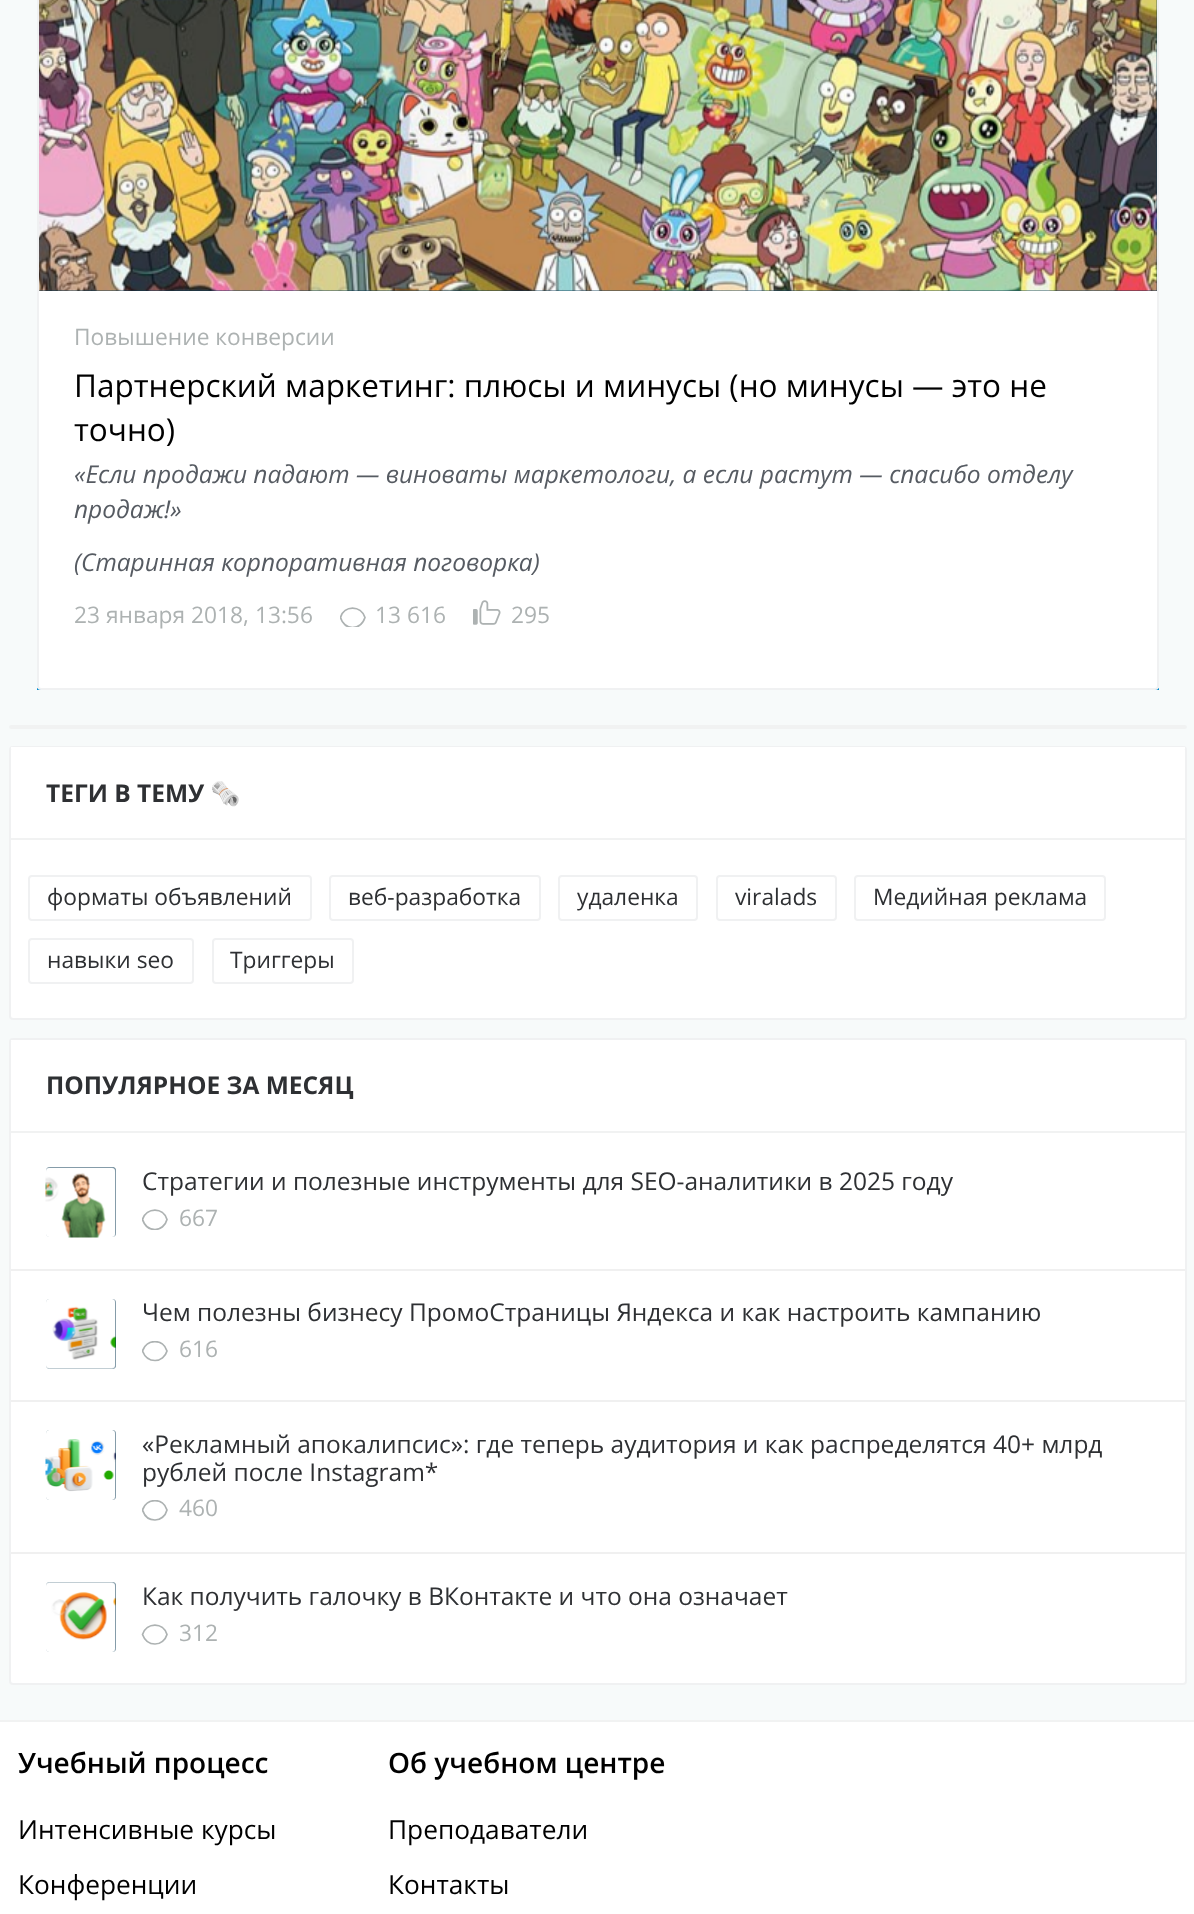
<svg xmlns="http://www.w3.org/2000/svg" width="1194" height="1914">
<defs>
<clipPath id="clip1"><rect x="340" y="607" width="26" height="20"/></clipPath>
<clipPath id="clip2"><rect x="142" y="1209" width="26" height="21"/></clipPath>
<clipPath id="clip3"><rect x="142" y="1341" width="26" height="21"/></clipPath>
<clipPath id="clip4"><rect x="142" y="1500" width="26" height="21"/></clipPath>
</defs>
<rect width="100%" height="100%" fill="#fff"/>
<rect width="1194" height="1720" fill="#f7fafa"/>
<rect x="37" y="688" width="1122" height="2" fill="#008ace"/>
<rect x="37" y="-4" width="1122" height="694" rx="4" fill="#fff"/>
<rect x="38" y="-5" width="1120" height="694" rx="3" fill="none" stroke="#6f797b1a" stroke-width="2"/>
<rect x="39" width="1118" height="291" fill="#0a3953"/>
<image x="39" y="0" width="1118" height="291" href="media/1.png"/>
<text x="74" y="345" style="font-family:Open Sans;font-size:22.75px;fill:#adb2b2">Повышение конверсии</text>
<text x="74" y="397" style="font-family:Open Sans;font-size:31.5px;fill:#000">Партнерский маркетинг: плюсы и минусы (но минусы — это не</text>
<text x="74" y="441" style="font-family:Open Sans;font-size:31.5px;fill:#000">точно)</text>
<text x="74" y="483" style="font-family:Open Sans;font-size:24.5px;font-style:italic;fill:#565b62">«Если продажи падают — виноваты маркетологи, а если растут — спасибо отделу</text>
<text x="74" y="518" style="font-family:Open Sans;font-size:24.5px;font-style:italic;fill:#565b62">продаж!»</text>
<text x="74" y="571" style="font-family:Open Sans;font-size:24.5px;font-style:italic;fill:#565b62">(Старинная корпоративная поговорка)</text>
<text x="74" y="623" style="font-family:Open Sans;font-size:22.75px;fill:#adb2b2">23 января 2018, 13:56</text>
<g clip-path="url(#clip1)">
<path d="M352.5 627.5c-5.5 0-10.5-4-12-10c3.5-12.5 20.5-12.5 24.5 0c-2 6-6.5 10-12.5 10z" fill="none" stroke="#adb2b2" stroke-width="1.7" stroke-linejoin="round"/>
</g>
<text x="375" y="623" style="font-family:Open Sans;font-size:22.75px;fill:#adb2b2">13 616</text>
<image x="473" y="600" width="28" height="25" href="media/2.png"/>
<text x="511" y="623" style="font-family:Open Sans;font-size:22.75px;fill:#adb2b2">295</text>
<rect x="9" y="725" width="1178" height="4" rx="2" fill="#f1f2f2"/>
<rect x="9" y="746" width="1178" height="274" rx="4" fill="#fff"/>
<rect x="10" y="747" width="1176" height="272" rx="3" fill="none" stroke="#6f797b1a" stroke-width="2"/>
<rect x="11" y="747" width="1174" height="2" fill="#fff"/>
<rect x="11" y="838" width="1174" height="2" fill="#f1f2f2"/>
<text x="46" y="802" style="font-family:Open Sans;font-size:24.5px;font-weight:bold;fill:#2e3033">ТЕГИ В ТЕМУ</text>
<text x="210" y="802" style="font-family:Noto Color Emoji;font-size:24.5px;font-weight:bold;fill:#2e3033">🗞️</text>
<rect x="29" y="876" width="282" height="44" rx="3" fill="none" stroke="#f0f1f2" stroke-width="2"/>
<text x="47" y="905" style="font-family:Open Sans;font-size:22.75px;fill:#2e3033">форматы объявлений</text>
<rect x="330" y="876" width="210" height="44" rx="3" fill="none" stroke="#f0f1f2" stroke-width="2"/>
<text x="348" y="905" style="font-family:Open Sans;font-size:22.75px;fill:#2e3033">веб-разработка</text>
<rect x="559" y="876" width="138" height="44" rx="3" fill="none" stroke="#f0f1f2" stroke-width="2"/>
<text x="577" y="905" style="font-family:Open Sans;font-size:22.75px;fill:#2e3033">удаленка</text>
<rect x="717" y="876" width="119" height="44" rx="3" fill="none" stroke="#f0f1f2" stroke-width="2"/>
<text x="735" y="905" style="font-family:Open Sans;font-size:22.75px;fill:#2e3033">viralads</text>
<rect x="855" y="876" width="250" height="44" rx="3" fill="none" stroke="#f0f1f2" stroke-width="2"/>
<text x="873" y="905" style="font-family:Open Sans;font-size:22.75px;fill:#2e3033">Медийная реклама</text>
<rect x="29" y="939" width="164" height="44" rx="3" fill="none" stroke="#f0f1f2" stroke-width="2"/>
<text x="47" y="968" style="font-family:Open Sans;font-size:22.75px;fill:#2e3033">навыки seo</text>
<rect x="213" y="939" width="140" height="44" rx="3" fill="none" stroke="#f0f1f2" stroke-width="2"/>
<text x="230" y="968" style="font-family:Open Sans;font-size:22.75px;fill:#2e3033">Триггеры</text>
<rect x="9" y="1038" width="1178" height="647" rx="4" fill="#fff"/>
<rect x="10" y="1039" width="1176" height="645" rx="3" fill="none" stroke="#6f797b1a" stroke-width="2"/>
<rect x="11" y="1040" width="1174" height="1" fill="#fff"/>
<text x="46" y="1094" style="font-family:Open Sans;font-size:24.5px;font-weight:bold;fill:#2e3033">ПОПУЛЯРНОЕ ЗА МЕСЯЦ</text>
<rect x="11" y="1131" width="1174" height="2" fill="#f1f2f2"/>
<rect x="11" y="1269" width="1174" height="2" fill="#f0f0f0"/>
<rect x="46" y="1167" width="70" height="70" rx="4" fill="#0a3953"/>
<image x="45" y="1167" width="71" height="71" href="media/3.png"/>
<text x="142" y="1190" style="font-family:Open Sans;font-size:24.5px;fill:#2e3033">Стратегии и полезные инструменты для SEO-аналитики в 2025 году</text>
<g clip-path="url(#clip2)">
<path d="M155 1229.5c-6 0-10.5-4-12.5-10c4-12.5 21-12.5 24.5 0c-1.5 6-6.5 10-12 10z" fill="none" stroke="#adb2b2" stroke-width="1.7" stroke-linejoin="round"/>
</g>
<text x="179" y="1226" style="font-family:Open Sans;font-size:22.75px;fill:#adb2b2">667</text>
<rect x="11" y="1400" width="1174" height="2" fill="#f0f0f0"/>
<rect x="46" y="1299" width="70" height="70" rx="4" fill="#0a3953"/>
<image x="46" y="1299" width="70" height="70" href="media/4.png"/>
<text x="142" y="1321" style="font-family:Open Sans;font-size:24.5px;fill:#2e3033">Чем полезны бизнесу ПромоСтраницы Яндекса и как настроить кампанию</text>
<g clip-path="url(#clip3)">
<path d="M155 1360.5c-6 0-10.5-4-12.5-9.5c4-12.5 21-12.5 24.5 0c-1.5 5.5-6.5 9.5-12 9.5z" fill="none" stroke="#adb2b2" stroke-width="1.7" stroke-linejoin="round"/>
</g>
<text x="179" y="1357" style="font-family:Open Sans;font-size:22.75px;fill:#adb2b2">616</text>
<rect x="11" y="1552" width="1174" height="2" fill="#f0f0f0"/>
<rect x="46" y="1430" width="70" height="70" rx="4" fill="#0a3953"/>
<image x="45" y="1430" width="71" height="70" href="media/5.png"/>
<text x="142" y="1453" style="font-family:Open Sans;font-size:24.5px;fill:#2e3033">«Рекламный апокалипсис»: где теперь аудитория и как распределятся 40+ млрд</text>
<text x="142" y="1481" style="font-family:Open Sans;font-size:24.5px;fill:#2e3033">рублей после Instagram*</text>
<g clip-path="url(#clip4)">
<path d="M155 1520c-6 0-10.5-4-12.5-10c4-12.5 21-12.5 24.5 0c-1.5 6-6.5 10-12 10z" fill="none" stroke="#adb2b2" stroke-width="1.7" stroke-linejoin="round"/>
</g>
<text x="179" y="1516" style="font-family:Open Sans;font-size:22.75px;fill:#adb2b2">460</text>
<rect x="46" y="1582" width="70" height="70" rx="4" fill="#0a3953"/>
<image x="46" y="1582" width="70" height="70" href="media/6.png"/>
<text x="142" y="1605" style="font-family:Open Sans;font-size:24.5px;fill:#2e3033">Как получить галочку в ВКонтакте и что она означает</text>
<path d="M155 1644c-6 0-10.5-4-12.5-9.5c4-12.5 21-12.5 24.5 0c-1.5 5.5-6.5 9.5-12 9.5z" fill="none" stroke="#adb2b2" stroke-width="1.7" stroke-linejoin="round"/>
<text x="179" y="1641" style="font-family:Open Sans;font-size:22.75px;fill:#adb2b2">312</text>
<rect y="1720" width="1194" height="2" fill="#f1f2f2"/>
<text x="18" y="1773" style="font-family:Open Sans;font-size:28px;font-weight:600;fill:#000">Учебный процесс</text>
<text x="18" y="1839" style="font-family:Open Sans;font-size:26.25px;fill:#000">Интенсивные курсы</text>
<text x="18" y="1894" style="font-family:Open Sans;font-size:26.25px;fill:#000">Конференции</text>
<text x="388" y="1773" style="font-family:Open Sans;font-size:28px;font-weight:600;fill:#000">Об учебном центре</text>
<text x="388" y="1839" style="font-family:Open Sans;font-size:26.25px;fill:#000">Преподаватели</text>
<text x="388" y="1894" style="font-family:Open Sans;font-size:26.25px;fill:#000">Контакты</text>
</svg>
